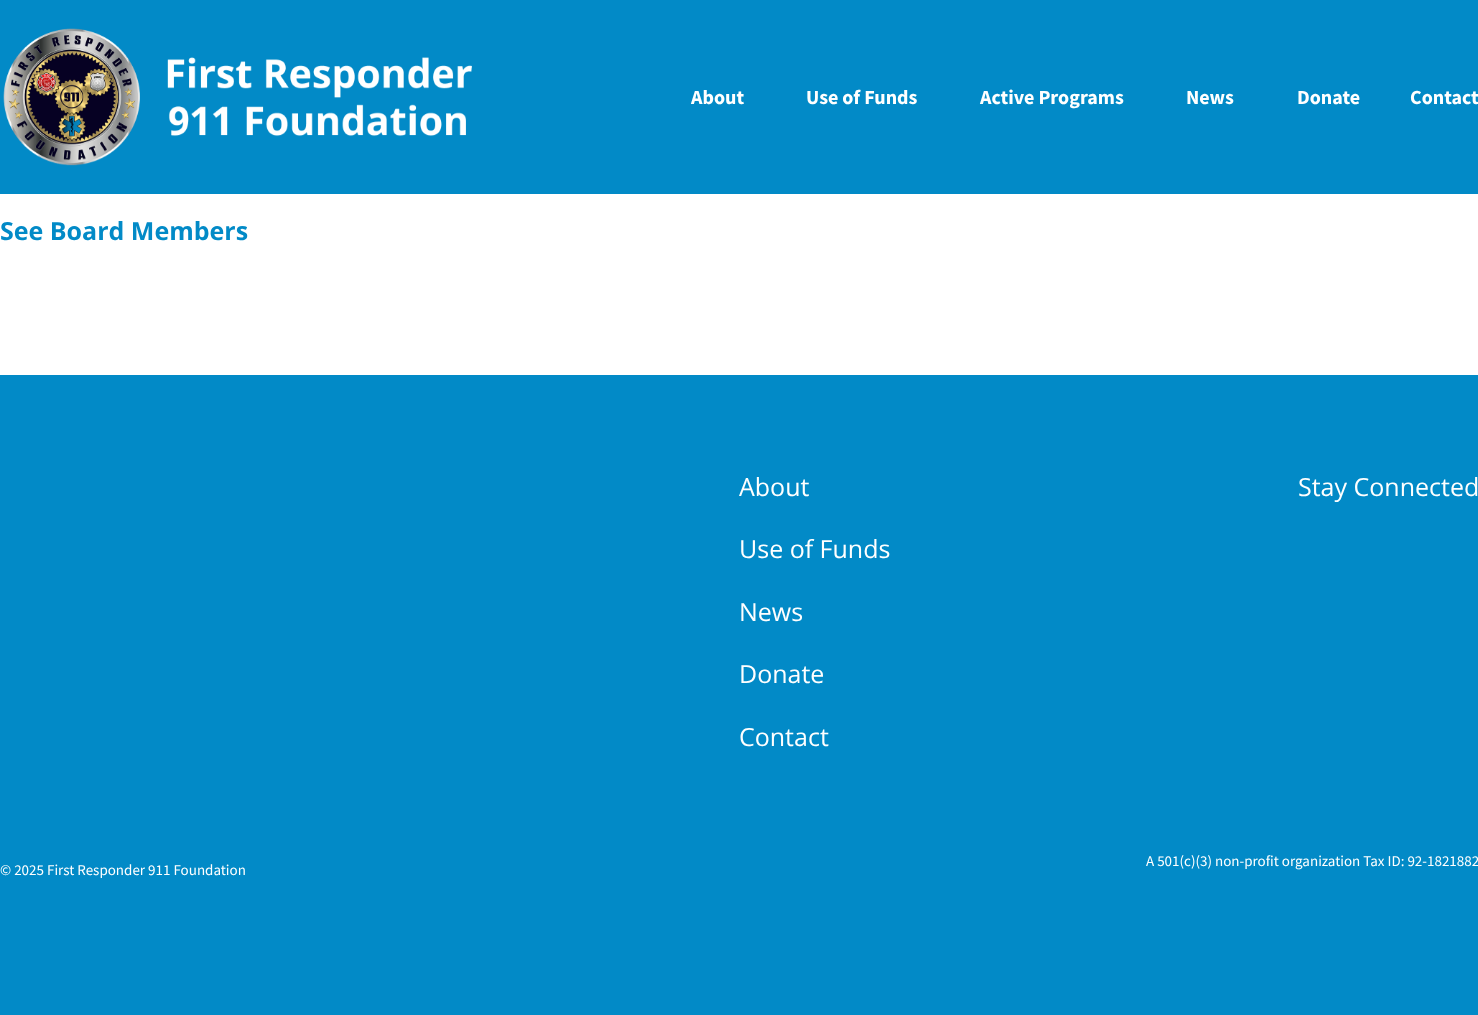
<svg xmlns="http://www.w3.org/2000/svg" width="1478" height="1015">
<rect width="100%" height="100%" fill="#fff"/>
<rect width="1478" height="194" fill="#028ac7"/>
<image x="3" y="28" width="469" height="138" href="media/1.png"/>
<text x="691" y="104" style="font-family:Source Sans Pro;font-size:20px;font-weight:bold;fill:#fff">About</text>
<text x="806" y="104" style="font-family:Source Sans Pro;font-size:20px;font-weight:bold;fill:#fff">Use of Funds</text>
<text x="980" y="104" style="font-family:Source Sans Pro;font-size:20px;font-weight:bold;fill:#fff">Active Programs</text>
<text x="1186" y="104" style="font-family:Source Sans Pro;font-size:20px;font-weight:bold;fill:#fff">News</text>
<text x="1297" y="104" style="font-family:Source Sans Pro;font-size:20px;font-weight:bold;fill:#fff">Donate</text>
<text x="1410" y="104" style="font-family:Source Sans Pro;font-size:20px;font-weight:bold;fill:#fff">Contact</text>
<text x="0" y="240" style="font-family:Open Sans;font-size:25px;font-weight:bold;fill:#028ac7">See Board Members</text>
<rect y="375" width="1478" height="640" fill="#028ac7"/>
<text x="739" y="496" style="font-family:Open Sans;font-size:25px;fill:#fff">About</text>
<text x="739" y="558" style="font-family:Open Sans;font-size:25px;fill:#fff">Use of Funds</text>
<text x="739" y="621" style="font-family:Open Sans;font-size:25px;fill:#fff">News</text>
<text x="739" y="683" style="font-family:Open Sans;font-size:25px;fill:#fff">Donate</text>
<text x="739" y="746" style="font-family:Open Sans;font-size:25px;fill:#fff">Contact</text>
<text x="1298" y="496" style="font-family:Open Sans;font-size:25px;fill:#fff">Stay Connected</text>
<text x="1146" y="866" style="font-family:Source Sans Pro;font-size:15px;fill:#fff">A 501(c)(3) non-profit organization Tax ID: 92-1821882</text>
<text x="0" y="875" style="font-family:Source Sans Pro;font-size:15px;fill:#fff">© 2025 First Responder 911 Foundation</text>
</svg>
